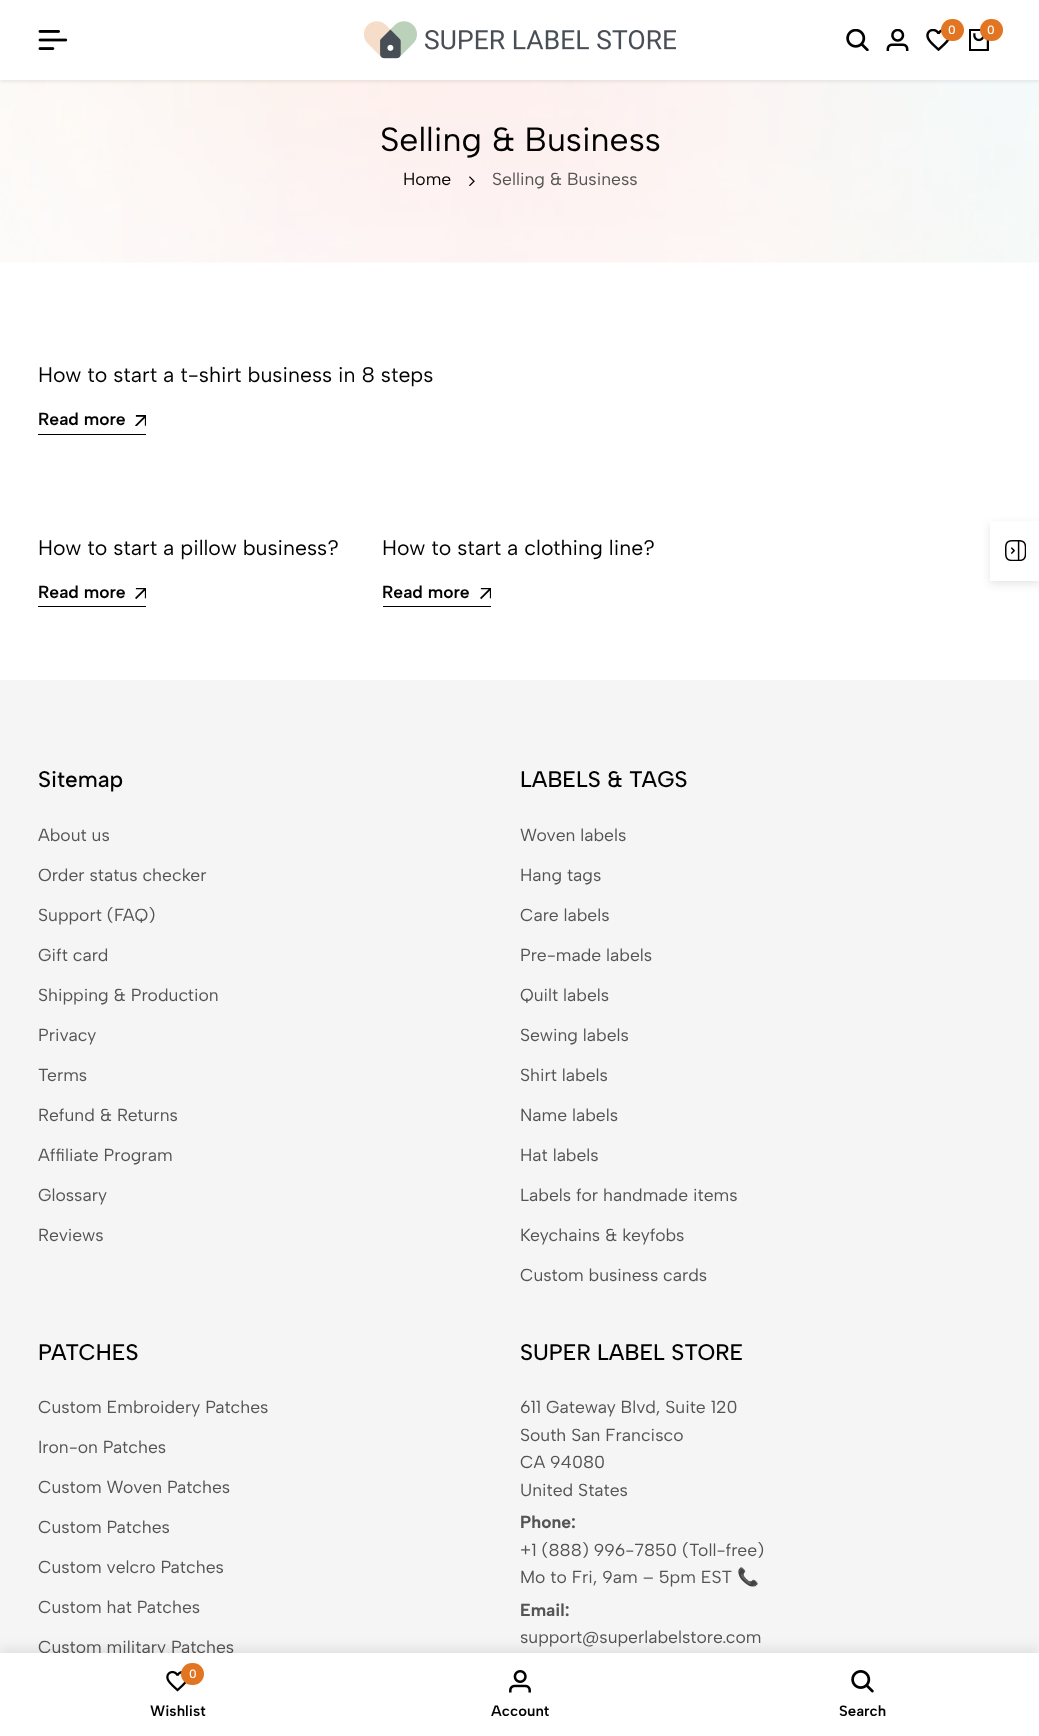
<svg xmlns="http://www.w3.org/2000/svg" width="1039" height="1736">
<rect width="100%" height="100%" fill="#fff"/>
<image x="0" y="80" width="1039" height="183" href="media/7.png"/>
<rect y="1" width="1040" height="80" fill="#0000001a" filter="blur(2px)"/>
<rect width="1039" height="80" fill="#fff"/>
<image x="38" y="30" width="30" height="20" href="media/1.png"/>
<image x="364" y="21" width="312" height="38" href="media/2.png"/>
<image x="846" y="29" width="23" height="22" href="media/3.png"/>
<image x="886" y="29" width="23" height="22" href="media/4.png"/>
<image x="926" y="29" width="24" height="22" href="media/5.png"/>
<rect x="941" y="19" width="23" height="22" rx="11" fill="#e27521"/>
<text x="948" y="34" style="font-family:Albert Sans;font-size:12px;font-weight:500;fill:#fff">0</text>
<image x="969" y="29" width="20" height="22" href="media/6.png"/>
<rect x="980" y="19" width="23" height="22" rx="11" fill="#e27521"/>
<text x="987" y="34" style="font-family:Albert Sans;font-size:12px;font-weight:500;fill:#fff">0</text>
<text x="380" y="151" style="font-family:Albert Sans;font-size:33.75px;fill:#000">Selling &amp; Business</text>
<text x="403" y="185" style="font-family:Albert Sans;font-size:17.5px;fill:#000">Home</text>
<image x="469" y="176" width="6" height="10" href="media/8.png"/>
<text x="492" y="185" style="font-family:Albert Sans;font-size:17.5px;fill:#545454">Selling &amp; Business</text>
<text x="38" y="382" style="font-family:Albert Sans;font-size:21.25px;fill:#000">How to start a t-shirt business in 8 steps</text>
<text x="38" y="425" style="font-family:Albert Sans;font-size:17.5px;font-weight:600;fill:#000">Read more</text>
<image x="135" y="415" width="11" height="11" href="media/9.png"/>
<rect x="38" y="434" width="108" height="1" fill="#000"/>
<text x="38" y="555" style="font-family:Albert Sans;font-size:21.25px;fill:#000">How to start a pillow business?</text>
<text x="38" y="598" style="font-family:Albert Sans;font-size:17.5px;font-weight:600;fill:#000">Read more</text>
<image x="135" y="588" width="11" height="12" href="media/10.png"/>
<rect x="38" y="606" width="108" height="1" fill="#000"/>
<text x="382" y="555" style="font-family:Albert Sans;font-size:21.25px;fill:#000">How to start a clothing line?</text>
<text x="382" y="598" style="font-family:Albert Sans;font-size:17.5px;font-weight:600;fill:#000">Read more</text>
<image x="480" y="588" width="11" height="12" href="media/10.png"/>
<rect x="383" y="606" width="108" height="1" fill="#000"/>
<rect x="990" y="524" width="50" height="60" fill="#0000001a" filter="blur(4px)"/>
<rect x="990" y="521" width="49" height="60" fill="#fff"/>
<image x="1005" y="540" width="21" height="21" href="media/11.png"/>
<rect y="680" width="1039" height="973" fill="#f5f5f5"/>
<text x="38" y="787" style="font-family:Albert Sans;font-size:22.5px;font-weight:500;fill:#000">Sitemap</text>
<text x="38" y="841" style="font-family:Albert Sans;font-size:17.5px;fill:#545454">About us</text>
<text x="38" y="881" style="font-family:Albert Sans;font-size:17.5px;fill:#545454">Order status checker</text>
<text x="38" y="921" style="font-family:Albert Sans;font-size:17.5px;fill:#545454">Support (FAQ)</text>
<text x="38" y="961" style="font-family:Albert Sans;font-size:17.5px;fill:#545454">Gift card</text>
<text x="38" y="1001" style="font-family:Albert Sans;font-size:17.5px;fill:#545454">Shipping &amp; Production</text>
<text x="38" y="1041" style="font-family:Albert Sans;font-size:17.5px;fill:#545454">Privacy</text>
<text x="38" y="1081" style="font-family:Albert Sans;font-size:17.5px;fill:#545454">Terms</text>
<text x="38" y="1121" style="font-family:Albert Sans;font-size:17.5px;fill:#545454">Refund &amp; Returns</text>
<text x="38" y="1161" style="font-family:Albert Sans;font-size:17.5px;fill:#545454">Affiliate Program</text>
<text x="38" y="1201" style="font-family:Albert Sans;font-size:17.5px;fill:#545454">Glossary</text>
<text x="38" y="1241" style="font-family:Albert Sans;font-size:17.5px;fill:#545454">Reviews</text>
<text x="520" y="787" style="font-family:Albert Sans;font-size:22.5px;font-weight:500;fill:#000">LABELS &amp; TAGS</text>
<text x="520" y="841" style="font-family:Albert Sans;font-size:17.5px;fill:#545454">Woven labels</text>
<text x="520" y="881" style="font-family:Albert Sans;font-size:17.5px;fill:#545454">Hang tags</text>
<text x="520" y="921" style="font-family:Albert Sans;font-size:17.5px;fill:#545454">Care labels</text>
<text x="520" y="961" style="font-family:Albert Sans;font-size:17.5px;fill:#545454">Pre-made labels</text>
<text x="520" y="1001" style="font-family:Albert Sans;font-size:17.5px;fill:#545454">Quilt labels</text>
<text x="520" y="1041" style="font-family:Albert Sans;font-size:17.5px;fill:#545454">Sewing labels</text>
<text x="520" y="1081" style="font-family:Albert Sans;font-size:17.5px;fill:#545454">Shirt labels</text>
<text x="520" y="1121" style="font-family:Albert Sans;font-size:17.5px;fill:#545454">Name labels</text>
<text x="520" y="1161" style="font-family:Albert Sans;font-size:17.5px;fill:#545454">Hat labels</text>
<text x="520" y="1201" style="font-family:Albert Sans;font-size:17.5px;fill:#545454">Labels for handmade items</text>
<text x="520" y="1241" style="font-family:Albert Sans;font-size:17.5px;fill:#545454">Keychains &amp; keyfobs</text>
<text x="520" y="1281" style="font-family:Albert Sans;font-size:17.5px;fill:#545454">Custom business cards</text>
<text x="38" y="1360" style="font-family:Albert Sans;font-size:22.5px;font-weight:500;fill:#000">PATCHES</text>
<text x="38" y="1413" style="font-family:Albert Sans;font-size:17.5px;fill:#545454">Custom Embroidery Patches</text>
<text x="38" y="1453" style="font-family:Albert Sans;font-size:17.5px;fill:#545454">Iron-on Patches</text>
<text x="38" y="1493" style="font-family:Albert Sans;font-size:17.5px;fill:#545454">Custom Woven Patches</text>
<text x="38" y="1533" style="font-family:Albert Sans;font-size:17.5px;fill:#545454">Custom Patches</text>
<text x="38" y="1573" style="font-family:Albert Sans;font-size:17.5px;fill:#545454">Custom velcro Patches</text>
<text x="38" y="1613" style="font-family:Albert Sans;font-size:17.5px;fill:#545454">Custom hat Patches</text>
<text x="38" y="1653" style="font-family:Albert Sans;font-size:17.5px;fill:#545454">Custom military Patches</text>
<text x="520" y="1360" style="font-family:Albert Sans;font-size:22.5px;font-weight:500;fill:#000">SUPER LABEL STORE</text>
<text x="520" y="1413" style="font-family:Albert Sans;font-size:17.5px;fill:#545454">611 Gateway Blvd, Suite 120</text>
<text x="520" y="1441" style="font-family:Albert Sans;font-size:17.5px;fill:#545454">South San Francisco</text>
<text x="520" y="1468" style="font-family:Albert Sans;font-size:17.5px;fill:#545454">CA 94080</text>
<text x="520" y="1496" style="font-family:Albert Sans;font-size:17.5px;fill:#545454">United States</text>
<text x="520" y="1528" style="font-family:Albert Sans;font-size:17.5px;font-weight:bold;fill:#545454">Phone:</text>
<text x="520" y="1556" style="font-family:Albert Sans;font-size:17.5px;fill:#545454">+1 (888) 996-7850 (Toll-free)</text>
<text x="520" y="1583" style="font-family:Albert Sans;font-size:17.5px;fill:#545454">Mo to Fri, 9am – 5pm EST</text>
<text x="737" y="1583" style="font-family:Noto Color Emoji;font-size:17.5px;fill:#545454">📞</text>
<text x="520" y="1616" style="font-family:Albert Sans;font-size:17.5px;font-weight:bold;fill:#545454">Email:</text>
<text x="520" y="1643" style="font-family:Albert Sans;font-size:17.5px;fill:#545454">support@superlabelstore.com</text>
<rect y="1648" width="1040" height="83" fill="#00000014" filter="blur(6px)"/>
<rect y="1653" width="1039" height="83" fill="#fff"/>
<image x="166" y="1670" width="21" height="22" href="media/12.png"/>
<rect x="181" y="1663" width="23" height="22" rx="11" fill="#e27521"/>
<text x="189" y="1678" style="font-family:Albert Sans;font-size:12px;font-weight:500;fill:#fff">0</text>
<text x="150" y="1716" style="font-family:Albert Sans;font-size:15px;font-weight:600;fill:#000">Wishlist</text>
<image x="509" y="1670" width="22" height="23" href="media/13.png"/>
<text x="491" y="1716" style="font-family:Albert Sans;font-size:15px;font-weight:600;fill:#000">Account</text>
<image x="851" y="1670" width="23" height="23" href="media/14.png"/>
<text x="839" y="1716" style="font-family:Albert Sans;font-size:15px;font-weight:600;fill:#000">Search</text>
</svg>
